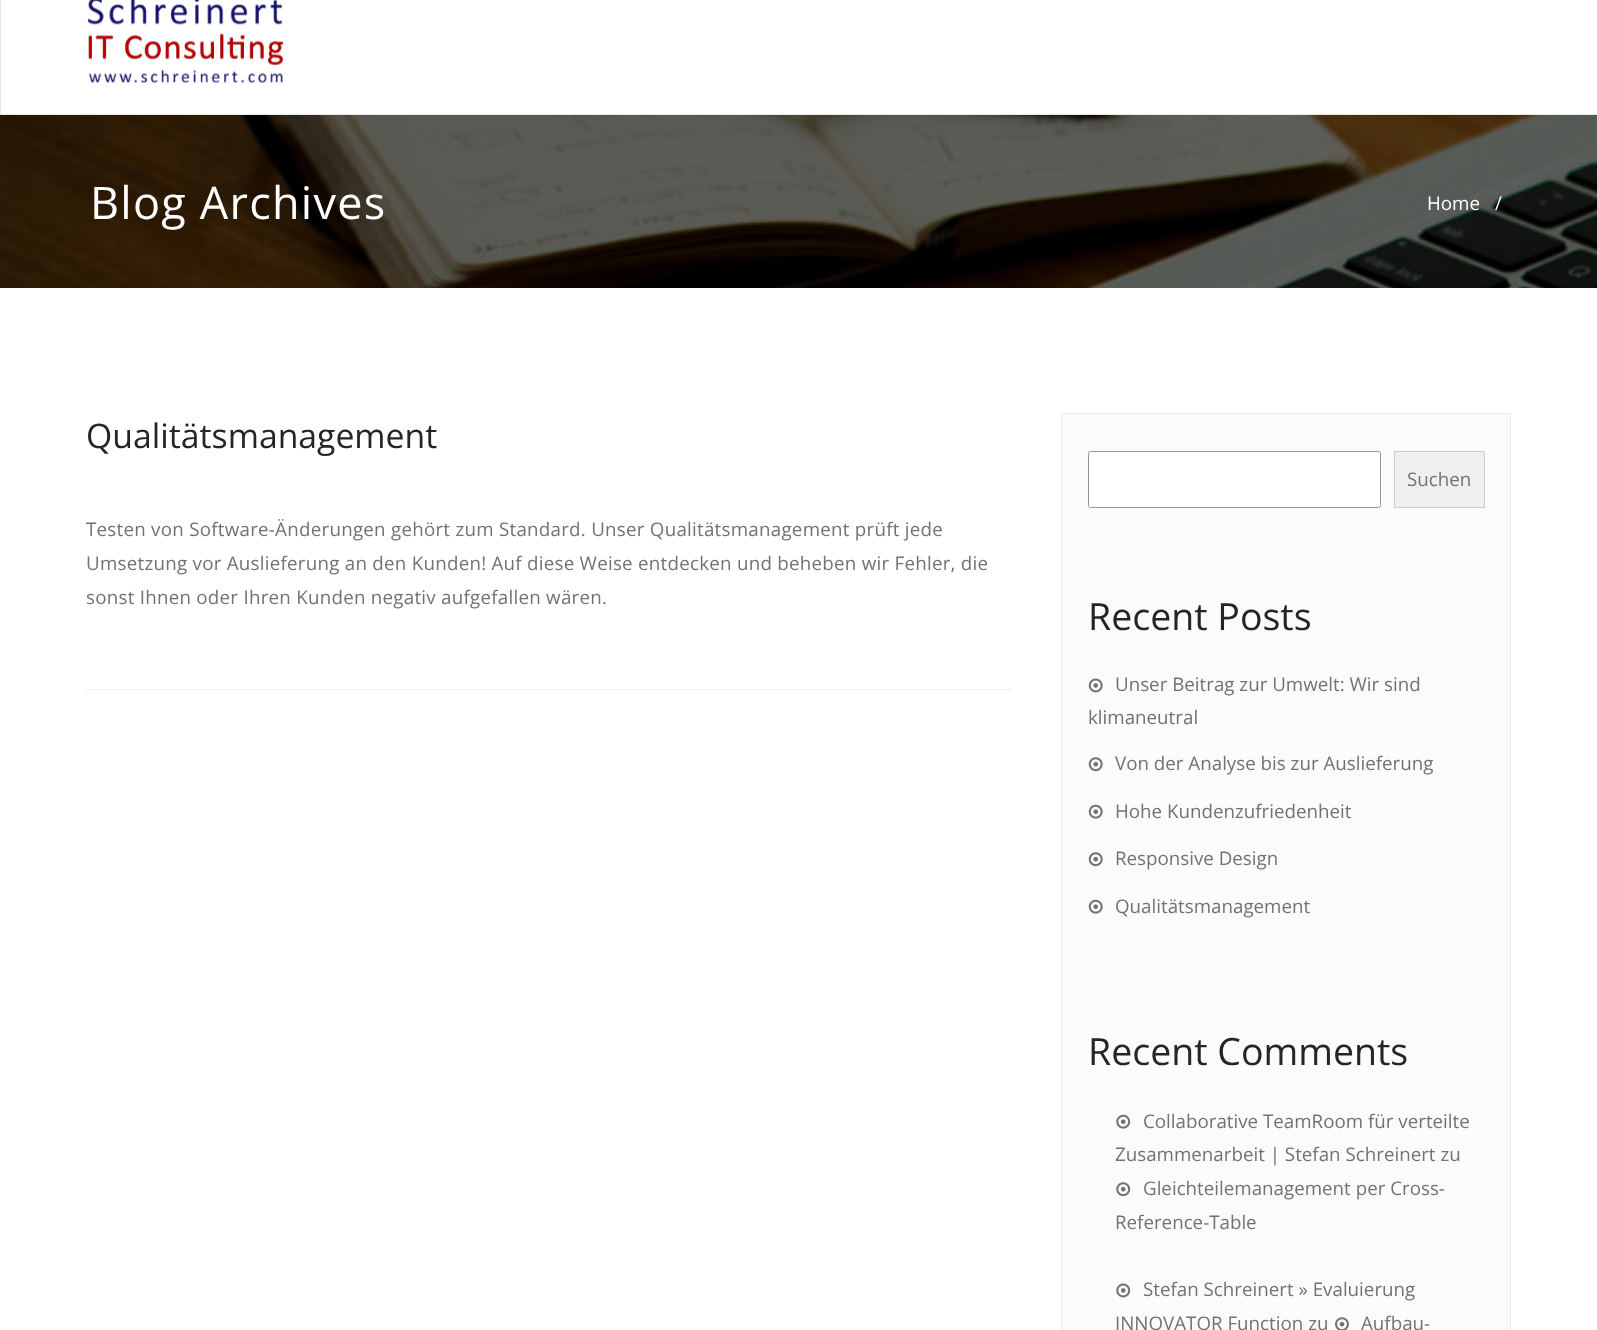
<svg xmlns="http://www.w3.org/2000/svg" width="1597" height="1330">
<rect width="100%" height="100%" fill="#fff"/>
<rect x="0.5" y="-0.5" width="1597" height="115" fill="none" stroke="#e7e7e7"/>
<image x="87" y="0" width="197" height="84" href="media/1.png"/>
<image x="0" y="115" width="1597" height="173" href="media/2.png"/>
<text x="90" y="219" style="font-family:Open Sans;font-size:45px;letter-spacing:1.25px;fill:#fff">Blog Archives</text>
<text x="1427" y="210" style="font-family:Open Sans;font-size:18.75px;fill:#fff">Home</text>
<text x="1495" y="210" style="font-family:Open Sans;font-size:18.75px;fill:#fff">/</text>
<rect x="86" y="689" width="925" height="1" fill="#eee"/>
<text x="86" y="448" style="font-family:Open Sans;font-size:33.75px;fill:#242526">Qualitätsmanagement</text>
<text x="86" y="536" style="font-family:Open Sans;font-size:18.75px;letter-spacing:0.25px;fill:#727272">Testen von Software-Änderungen gehört zum Standard. Unser Qualitätsmanagement prüft jede</text>
<text x="86" y="570" style="font-family:Open Sans;font-size:18.75px;letter-spacing:0.25px;fill:#727272">Umsetzung vor Auslieferung an den Kunden! Auf diese Weise entdecken und beheben wir Fehler, die</text>
<text x="86" y="604" style="font-family:Open Sans;font-size:18.75px;letter-spacing:0.25px;fill:#727272">sonst Ihnen oder Ihren Kunden negativ aufgefallen wären.</text>
<rect x="1061.5" y="413.5" width="449" height="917" fill="#fbfbfb" stroke="#e9e9e9"/>
<rect x="1088.5" y="451.5" width="292" height="56" rx="2" fill="#fff" stroke="#949494"/>
<rect x="1394.5" y="451.5" width="90" height="56" fill="#efefef" stroke="#ccc"/>
<text x="1407" y="486" style="font-family:Open Sans;font-size:18.75px;fill:#727272">Suchen</text>
<text x="1088" y="630" style="font-family:Open Sans;font-size:37.5px;fill:#242526">Recent Posts</text>
<image x="1088" y="678" width="15" height="15" href="media/3.png"/>
<text x="1115" y="691" style="font-family:Open Sans;font-size:18.75px;fill:#727272">Unser Beitrag zur Umwelt: Wir sind</text>
<text x="1088" y="724" style="font-family:Open Sans;font-size:18.75px;fill:#727272">klimaneutral</text>
<image x="1088" y="757" width="15" height="15" href="media/4.png"/>
<text x="1115" y="770" style="font-family:Open Sans;font-size:18.75px;fill:#727272">Von der Analyse bis zur Auslieferung</text>
<image x="1088" y="804" width="15" height="15" href="media/5.png"/>
<text x="1115" y="818" style="font-family:Open Sans;font-size:18.75px;fill:#727272">Hohe Kundenzufriedenheit</text>
<image x="1088" y="852" width="15" height="15" href="media/4.png"/>
<text x="1115" y="865" style="font-family:Open Sans;font-size:18.75px;fill:#727272">Responsive Design</text>
<image x="1088" y="899" width="15" height="15" href="media/5.png"/>
<text x="1115" y="913" style="font-family:Open Sans;font-size:18.75px;fill:#727272">Qualitätsmanagement</text>
<text x="1088" y="1065" style="font-family:Open Sans;font-size:37.5px;fill:#242526">Recent Comments</text>
<image x="1116" y="1114" width="15" height="15" href="media/6.png"/>
<text x="1143" y="1128" style="font-family:Open Sans;font-size:18.75px;fill:#727272">Collaborative TeamRoom für verteilte</text>
<text x="1115" y="1161" style="font-family:Open Sans;font-size:18.75px;fill:#727272">Zusammenarbeit | Stefan Schreinert zu</text>
<image x="1116" y="1182" width="15" height="15" href="media/7.png"/>
<text x="1143" y="1195" style="font-family:Open Sans;font-size:18.75px;fill:#727272">Gleichteilemanagement per Cross-</text>
<text x="1115" y="1229" style="font-family:Open Sans;font-size:18.75px;fill:#727272">Reference-Table</text>
<image x="1116" y="1283" width="15" height="15" href="media/8.png"/>
<text x="1143" y="1296" style="font-family:Open Sans;font-size:18.75px;fill:#727272">Stefan Schreinert » Evaluierung</text>
<text x="1115" y="1330" style="font-family:Open Sans;font-size:18.75px;fill:#727272">INNOVATOR Function zu</text>
<image x="1335" y="1317" width="14" height="13" href="media/9.png"/>
<text x="1361" y="1330" style="font-family:Open Sans;font-size:18.75px;fill:#727272">Aufbau-</text>
</svg>
